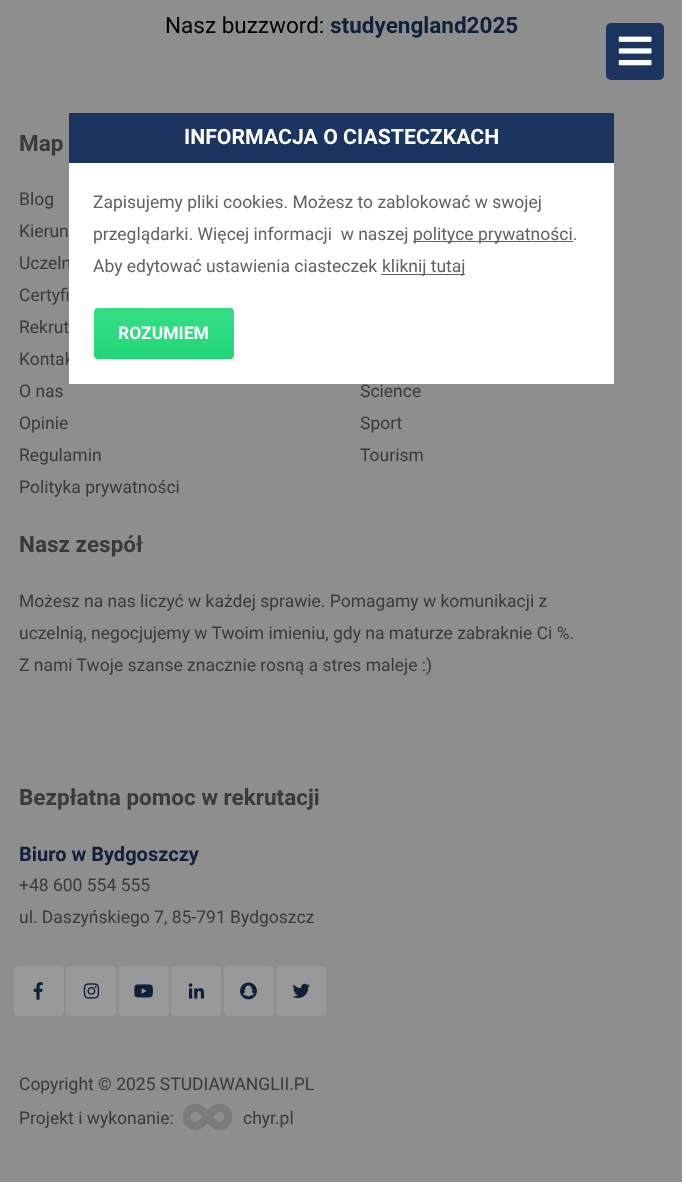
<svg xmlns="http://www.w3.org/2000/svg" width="682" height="1182">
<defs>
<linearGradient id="g1" gradientUnits="userSpaceOnUse" x1="164" y1="308" x2="164" y2="359"><stop offset="0" stop-color="#35de86"/><stop offset="1" stop-color="#23d679"/></linearGradient>
</defs>
<rect width="100%" height="100%" fill="#8e8e8e"/>
<text x="165" y="33" style="font-family:Roboto;font-size:22.5px;fill:#000">Nasz buzzword:</text>
<text x="330" y="33" style="font-family:Roboto;font-size:22.5px;font-weight:bold;fill:#10203a">studyengland2025</text>
<rect x="606" y="23" width="58" height="57" rx="5" fill="#1b3560"/>
<image x="618" y="36" width="34" height="30" href="media/1.png"/>
<text x="19" y="269" style="font-family:Roboto;font-size:17.5px;fill:#3a3a3b">Uczeln</text>
<text x="19" y="365" style="font-family:Roboto;font-size:17.5px;fill:#3a3a3b">Kontak</text>
<rect x="69" y="163" width="545" height="221" fill="#fff"/>
<rect x="69" y="113" width="545" height="50" fill="#1b3560"/>
<text x="184" y="144" style="font-family:Roboto;font-size:21.25px;font-weight:bold;fill:#fff">INFORMACJA O CIASTECZKACH</text>
<text x="93" y="208" style="font-family:Roboto;font-size:17.5px;fill:#606162">Zapisujemy pliki cookies. Możesz to zablokować w swojej</text>
<text x="93" y="240" style="font-family:Roboto;font-size:17.5px;fill:#606162" xml:space="preserve">przeglądarki. Więcej informacji  w naszej</text>
<rect x="413" y="241" width="160" height="1" fill="#606162"/>
<text x="413" y="240" style="font-family:Roboto;font-size:17.5px;fill:#606162">polityce prywatności.</text>
<text x="93" y="272" style="font-family:Roboto;font-size:17.5px;fill:#606162">Aby edytować ustawienia ciasteczek</text>
<rect x="381" y="274" width="84" height="1" fill="#606162"/>
<text x="382" y="272" style="font-family:Roboto;font-size:17.5px;fill:#606162">kliknij tutaj</text>
<rect x="94" y="308" width="140" height="51" rx="4" fill="url(#g1)"/>
<text x="118" y="339" style="font-family:Roboto;font-size:17.5px;font-weight:bold;fill:#fff">ROZUMIEM</text>
<text x="19" y="151" style="font-family:Roboto;font-size:22.5px;font-weight:bold;fill:#3a3a3b">Map</text>
<text x="19" y="205" style="font-family:Roboto;font-size:17.5px;fill:#3a3a3b">Blog</text>
<text x="19" y="237" style="font-family:Roboto;font-size:17.5px;fill:#3a3a3b">Kierun</text>
<text x="19" y="301" style="font-family:Roboto;font-size:17.5px;fill:#3a3a3b">Certyfi</text>
<text x="19" y="333" style="font-family:Roboto;font-size:17.5px;fill:#3a3a3b">Rekrut</text>
<text x="19" y="397" style="font-family:Roboto;font-size:17.5px;fill:#3a3a3b">O nas</text>
<text x="19" y="429" style="font-family:Roboto;font-size:17.5px;fill:#3a3a3b">Opinie</text>
<text x="19" y="461" style="font-family:Roboto;font-size:17.5px;fill:#3a3a3b">Regulamin</text>
<text x="19" y="493" style="font-family:Roboto;font-size:17.5px;fill:#3a3a3b">Polityka prywatności</text>
<text x="360" y="397" style="font-family:Roboto;font-size:17.5px;fill:#3a3a3b">Science</text>
<text x="360" y="429" style="font-family:Roboto;font-size:17.5px;fill:#3a3a3b">Sport</text>
<text x="360" y="461" style="font-family:Roboto;font-size:17.5px;fill:#3a3a3b">Tourism</text>
<text x="19" y="552" style="font-family:Roboto;font-size:22.5px;font-weight:bold;fill:#3a3a3b">Nasz zespół</text>
<text x="19" y="607" style="font-family:Roboto;font-size:17.5px;fill:#3a3a3b">Możesz na nas liczyć w każdej sprawie. Pomagamy w komunikacji z</text>
<text x="19" y="639" style="font-family:Roboto;font-size:17.5px;fill:#3a3a3b">uczelnią, negocjujemy w Twoim imieniu, gdy na maturze zabraknie Ci %.</text>
<text x="19" y="671" style="font-family:Roboto;font-size:17.5px;fill:#3a3a3b">Z nami Twoje szanse znacznie rosną a stres maleje :)</text>
<text x="19" y="805" style="font-family:Roboto;font-size:22.5px;font-weight:bold;fill:#3a3a3b">Bezpłatna pomoc w rekrutacji</text>
<text x="19" y="861" style="font-family:Roboto;font-size:20px;font-weight:bold;fill:#10203a">Biuro w Bydgoszczy</text>
<text x="19" y="891" style="font-family:Roboto;font-size:17.5px;fill:#3a3a3b">+48 600 554 555</text>
<text x="19" y="923" style="font-family:Roboto;font-size:17.5px;fill:#3a3a3b">ul. Daszyńskiego 7, 85-791 Bydgoszcz</text>
<rect x="14" y="966" width="50" height="50" rx="4" fill="#999"/>
<image x="33" y="982" width="10" height="18" href="media/2.png"/>
<rect x="66" y="966" width="50" height="50" rx="4" fill="#999"/>
<image x="83" y="983" width="17" height="16" href="media/3.png"/>
<rect x="119" y="966" width="50" height="50" rx="4" fill="#999"/>
<image x="134" y="984" width="19" height="14" href="media/4.png"/>
<rect x="171" y="966" width="50" height="50" rx="4" fill="#999"/>
<image x="188" y="983" width="17" height="16" href="media/5.png"/>
<rect x="224" y="966" width="50" height="50" rx="4" fill="#999"/>
<image x="240" y="982" width="17" height="18" href="media/6.png"/>
<rect x="276" y="966" width="50" height="50" rx="4" fill="#999"/>
<image x="292" y="983" width="18" height="15" href="media/7.png"/>
<text x="19" y="1090" style="font-family:Roboto;font-size:17.5px;fill:#3a3a3b">Copyright © 2025 STUDIAWANGLII.PL</text>
<text x="19" y="1124" style="font-family:Roboto;font-size:17.5px;fill:#3a3a3b">Projekt i wykonanie:</text>
<image x="183" y="1104" width="50" height="26" href="media/8.png"/>
<text x="243" y="1124" style="font-family:Roboto;font-size:17.5px;fill:#3a3a3b">chyr.pl</text>
</svg>
